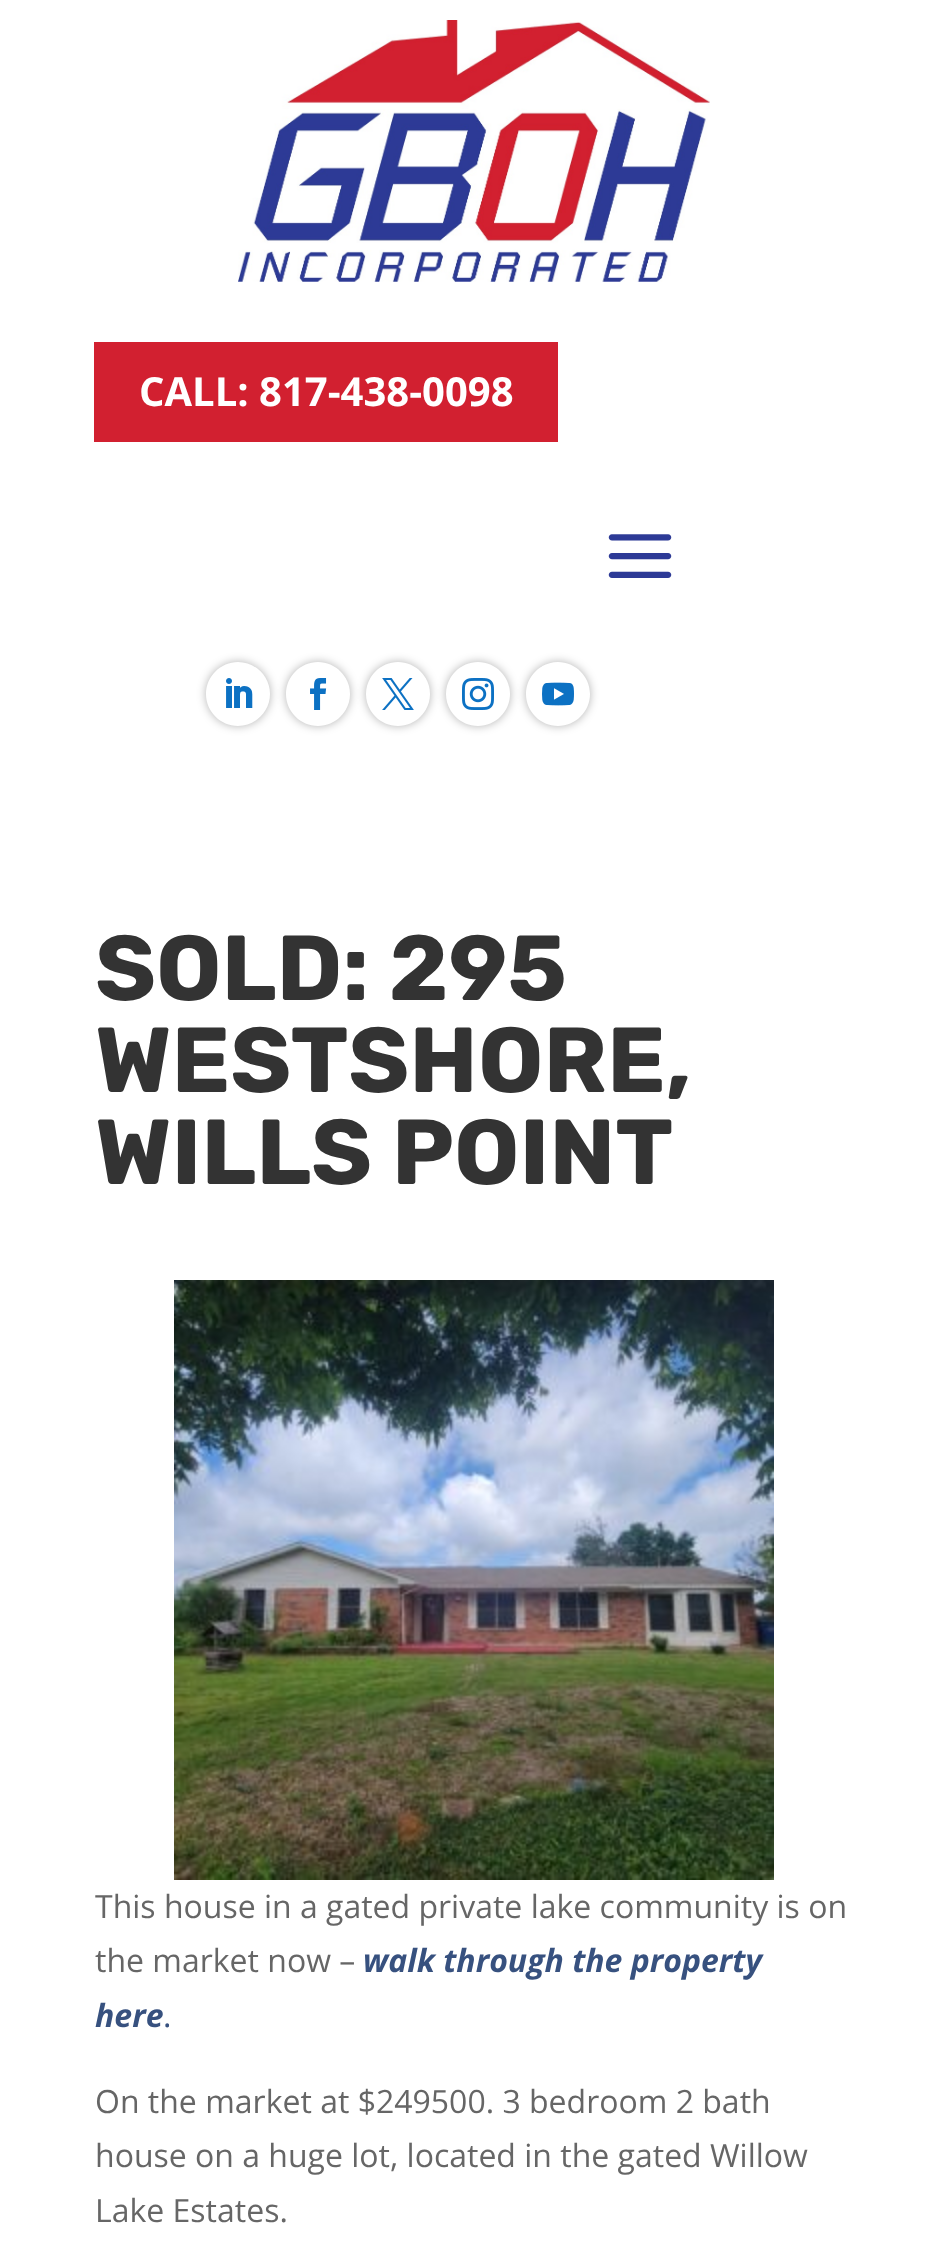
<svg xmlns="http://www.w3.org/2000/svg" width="947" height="2251">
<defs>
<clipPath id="clip1"><path d="M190 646h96v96h-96zm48 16c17.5 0 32 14.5 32 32c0 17.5-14.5 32-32 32c-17.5 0-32-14.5-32-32c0-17.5 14.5-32 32-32z" clip-rule="evenodd"/></clipPath>
<clipPath id="clip2"><path d="M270 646h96v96h-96zm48 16c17.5 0 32 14.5 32 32c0 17.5-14.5 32-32 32c-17.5 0-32-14.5-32-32c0-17.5 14.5-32 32-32z" clip-rule="evenodd"/></clipPath>
<clipPath id="clip3"><path d="M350 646h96v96h-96zm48 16c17.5 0 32 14.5 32 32c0 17.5-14.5 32-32 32c-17.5 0-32-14.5-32-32c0-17.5 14.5-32 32-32z" clip-rule="evenodd"/></clipPath>
<clipPath id="clip4"><path d="M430 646h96v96h-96zm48 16c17.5 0 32 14.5 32 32c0 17.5-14.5 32-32 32c-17.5 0-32-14.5-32-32c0-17.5 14.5-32 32-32z" clip-rule="evenodd"/></clipPath>
<clipPath id="clip5"><path d="M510 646h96v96h-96zm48 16c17.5 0 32 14.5 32 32c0 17.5-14.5 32-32 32c-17.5 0-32-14.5-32-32c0-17.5 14.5-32 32-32z" clip-rule="evenodd"/></clipPath>
</defs>
<rect width="100%" height="100%" fill="#fff"/>
<image x="238" y="20" width="472" height="262" href="media/1.png"/>
<rect x="94" y="342" width="464" height="100" fill="#d22030"/>
<text x="139" y="406" style="font-family:Open Sans;font-size:40px;font-weight:bold;fill:#fff">CALL: 817-438-0098</text>
<image x="608" y="534" width="64" height="44" href="media/2.png"/>
<g clip-path="url(#clip1)">
<rect x="206" y="662" width="64" height="64" rx="32" fill="#0000004d" filter="blur(5px)"/>
</g>
<image x="226" y="678" width="27" height="30" href="media/3.png"/>
<g clip-path="url(#clip2)">
<rect x="286" y="662" width="64" height="64" rx="32" fill="#0000004d" filter="blur(5px)"/>
</g>
<image x="310" y="678" width="17" height="32" href="media/4.png"/>
<g clip-path="url(#clip3)">
<rect x="366" y="662" width="64" height="64" rx="32" fill="#0000004d" filter="blur(5px)"/>
</g>
<image x="382" y="678" width="32" height="32" href="media/5.png"/>
<g clip-path="url(#clip4)">
<rect x="446" y="662" width="64" height="64" rx="32" fill="#0000004d" filter="blur(5px)"/>
</g>
<image x="462" y="678" width="32" height="32" href="media/6.png"/>
<g clip-path="url(#clip5)">
<rect x="526" y="662" width="64" height="64" rx="32" fill="#0000004d" filter="blur(5px)"/>
</g>
<image x="542" y="682" width="32" height="24" href="media/7.png"/>
<text x="95" y="1000" style="font-family:Rubik;font-size:92px;font-weight:bold;fill:#333">SOLD: 295</text>
<text x="95" y="1092" style="font-family:Rubik;font-size:92px;font-weight:bold;fill:#333">WESTSHORE,</text>
<text x="95" y="1184" style="font-family:Rubik;font-size:92px;font-weight:bold;fill:#333">WILLS POINT</text>
<image x="174" y="1280" width="600" height="600" href="media/8.png"/>
<text x="95" y="1918" style="font-family:Open Sans;font-size:32px;fill:#666">This house in a gated private lake community is on</text>
<text x="95" y="1972" style="font-family:Open Sans;font-size:32px;fill:#666">the market now –</text>
<text x="363" y="1972" style="font-family:Open Sans;font-size:32px;font-weight:bold;font-style:italic;fill:#37517f">walk through the property</text>
<text x="95" y="2027" style="font-family:Open Sans;font-size:32px;font-weight:bold;font-style:italic;fill:#37517f">here</text>
<text x="163" y="2027" style="font-family:Open Sans;font-size:32px;fill:#37517f">.</text>
<text x="95" y="2113" style="font-family:Open Sans;font-size:32px;fill:#666">On the market at $249500. 3 bedroom 2 bath</text>
<text x="95" y="2167" style="font-family:Open Sans;font-size:32px;fill:#666">house on a huge lot, located in the gated Willow</text>
<text x="95" y="2222" style="font-family:Open Sans;font-size:32px;fill:#666">Lake Estates.</text>
</svg>
